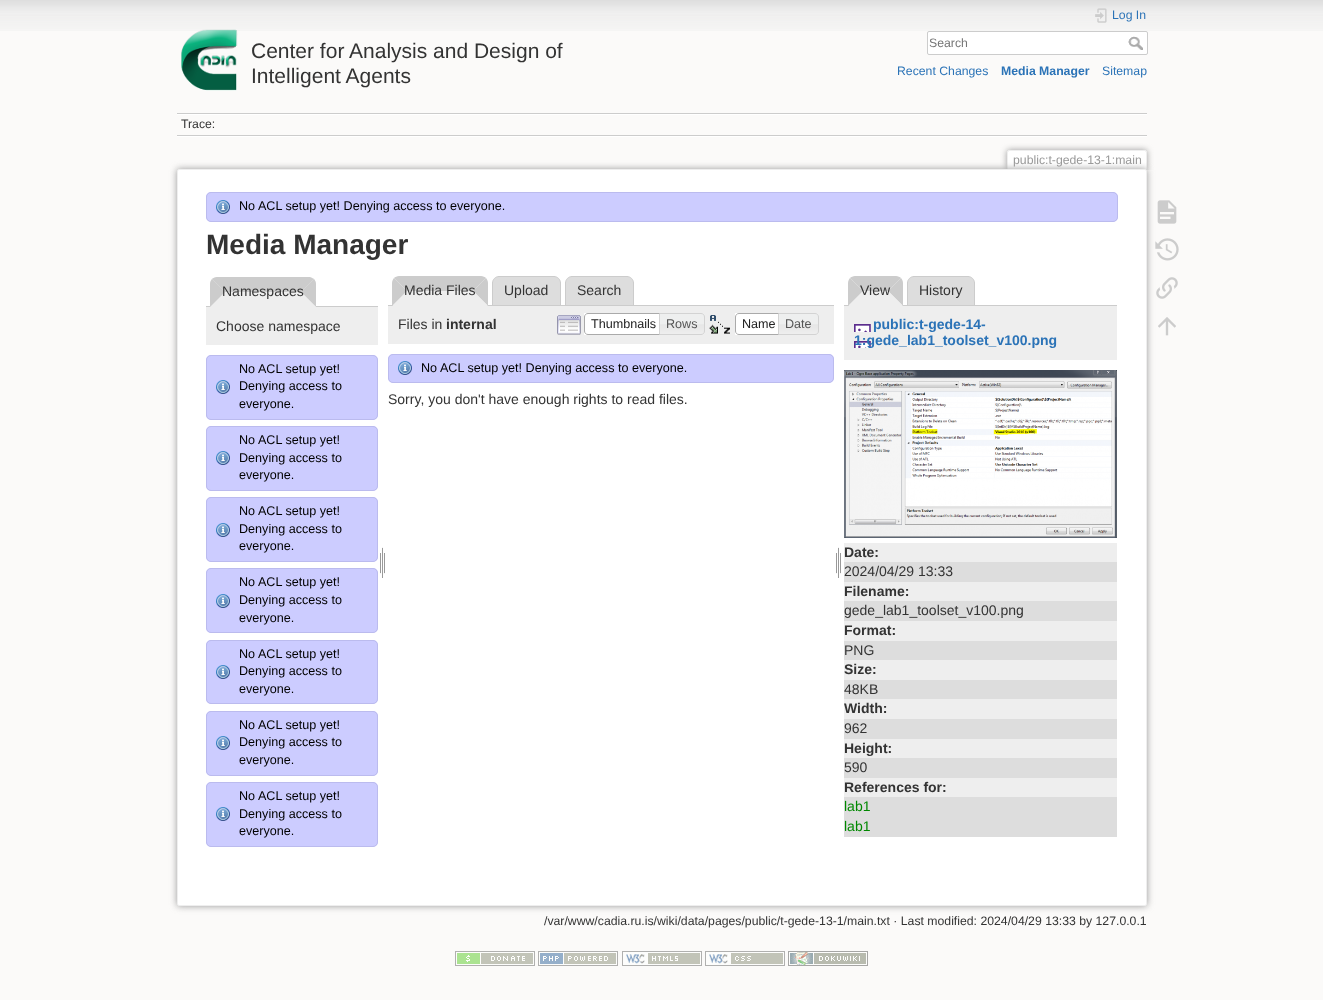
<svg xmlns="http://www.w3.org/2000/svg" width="1323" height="1000">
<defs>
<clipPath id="clip1"><rect x="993" y="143" width="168" height="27"/></clipPath>
</defs>
<rect width="100%" height="100%" fill="#fbfaf9"/>
<image x="0" y="0" width="1323" height="31" href="media/1.png"/>
<image x="181" y="29" width="57" height="62" href="media/2.png"/>
<text x="251" y="58" style="font-family:Liberation Sans;font-size:21px;fill:#333">Center for Analysis and Design of</text>
<text x="251" y="83" style="font-family:Liberation Sans;font-size:21px;fill:#333">Intelligent Agents</text>
<image x="1095" y="8" width="12" height="15" href="media/3.png"/>
<text x="1112" y="19" style="font-family:Liberation Sans;font-size:12.25px;fill:#2b73b7">Log In</text>
<rect x="927.5" y="31.5" width="220" height="23" rx="1.5" fill="#fff" stroke="#ccc"/>
<text x="929" y="47" style="font-family:Liberation Sans;font-size:12.25px;fill:#757575">Search</text>
<image x="1128" y="36" width="15" height="14" href="media/4.png"/>
<text x="897" y="75" style="font-family:Liberation Sans;font-size:12.25px;fill:#2b73b7">Recent Changes</text>
<text x="1001" y="75" style="font-family:Liberation Sans;font-size:12.25px;font-weight:bold;fill:#2b73b7">Media Manager</text>
<text x="1102" y="75" style="font-family:Liberation Sans;font-size:12.25px;fill:#2b73b7">Sitemap</text>
<rect x="177" y="113" width="970" height="1" fill="#ccc"/>
<rect x="177" y="136" width="970" height="1" fill="#fff"/>
<rect x="177" y="114" width="970" height="1" fill="#fff"/>
<rect x="177" y="135" width="970" height="1" fill="#ccc"/>
<text x="181" y="128" style="font-family:Liberation Sans;font-size:12.25px;fill:#333">Trace:</text>
<g clip-path="url(#clip1)">
<rect x="1007" y="150" width="140" height="20" rx="2" fill="#999" filter="blur(3px)"/>
</g>
<path d="M1009 151h136c.5 0 1 .5 1 1v18h-138v-18c0-.5 .5-1 1-1z" fill="#fff"/>
<rect x="1008" y="150" width="138" height="1" fill="#eee"/>
<rect x="1146" y="151" width="1" height="19" fill="#eee"/>
<rect x="1007" y="151" width="1" height="19" fill="#eee"/>
<text x="1013" y="164" style="font-family:Liberation Sans;font-size:12.25px;fill:#999">public:t-gede-13-1:main</text>
<rect x="177" y="169" width="970" height="737" rx="2" fill="#999" filter="blur(3.5px)"/>
<rect x="177.5" y="169.5" width="969" height="736" rx="1.5" fill="#fff" stroke="#eee"/>
<rect x="206" y="192" width="912" height="30" rx="5" fill="#ccf"/>
<image x="216" y="200" width="14" height="14" href="media/5.png"/>
<rect x="206.5" y="192.5" width="911" height="29" rx="4.5" fill="none" stroke="#bbe"/>
<text x="239" y="210" style="font-family:Liberation Sans;font-size:12.6px;fill:#000">No ACL setup yet! Denying access to everyone.</text>
<text x="206" y="254" style="font-family:Liberation Sans;font-size:28px;font-weight:bold;fill:#333">Media Manager</text>
<rect x="206" y="306" width="172" height="1" fill="#ccc"/>
<path d="M217 277h92c4 0 7 3 7 7v23h-106v-23c0-4 3-7 7-7z" fill="#eee"/>
<path d="M217 277h93l4 2l-13 13h-76l-13-13c1-1 3-2 5-2z" fill="#ccc"/>
<path d="M314 279l-13 13l15 15v-23c0-2-1-4-2-5z" fill="#ccc"/>
<path d="M316 307l-15-15h-76l-15 15z" fill="#eee"/>
<path d="M210 307v-23c0-2 1-4 2-5l13 13z" fill="#ccc"/>
<text x="222" y="296" style="font-family:Liberation Sans;font-size:14px;fill:#333">Namespaces</text>
<rect x="206" y="307" width="172" height="38" fill="#eee"/>
<text x="216" y="331" style="font-family:Liberation Sans;font-size:14px;fill:#333">Choose namespace</text>
<rect x="206" y="355" width="172" height="65" rx="5" fill="#ccf"/>
<image x="216" y="380" width="14" height="14" href="media/5.png"/>
<rect x="206.5" y="355.5" width="171" height="64" rx="4.5" fill="none" stroke="#bbe"/>
<text x="239" y="373" style="font-family:Liberation Sans;font-size:12.6px;fill:#000">No ACL setup yet!</text>
<text x="239" y="390" style="font-family:Liberation Sans;font-size:12.6px;fill:#000">Denying access to</text>
<text x="239" y="408" style="font-family:Liberation Sans;font-size:12.6px;fill:#000">everyone.</text>
<rect x="206" y="426" width="172" height="65" rx="5" fill="#ccf"/>
<image x="216" y="451" width="14" height="14" href="media/5.png"/>
<rect x="206.5" y="426.5" width="171" height="64" rx="4.5" fill="none" stroke="#bbe"/>
<text x="239" y="444" style="font-family:Liberation Sans;font-size:12.6px;fill:#000">No ACL setup yet!</text>
<text x="239" y="462" style="font-family:Liberation Sans;font-size:12.6px;fill:#000">Denying access to</text>
<text x="239" y="479" style="font-family:Liberation Sans;font-size:12.6px;fill:#000">everyone.</text>
<rect x="206" y="497" width="172" height="65" rx="5" fill="#ccf"/>
<image x="216" y="523" width="14" height="14" href="media/5.png"/>
<rect x="206.5" y="497.5" width="171" height="64" rx="4.5" fill="none" stroke="#bbe"/>
<text x="239" y="515" style="font-family:Liberation Sans;font-size:12.6px;fill:#000">No ACL setup yet!</text>
<text x="239" y="533" style="font-family:Liberation Sans;font-size:12.6px;fill:#000">Denying access to</text>
<text x="239" y="550" style="font-family:Liberation Sans;font-size:12.6px;fill:#000">everyone.</text>
<rect x="206" y="568" width="172" height="65" rx="5" fill="#ccf"/>
<image x="216" y="594" width="14" height="14" href="media/5.png"/>
<rect x="206.5" y="568.5" width="171" height="64" rx="4.5" fill="none" stroke="#bbe"/>
<text x="239" y="586" style="font-family:Liberation Sans;font-size:12.6px;fill:#000">No ACL setup yet!</text>
<text x="239" y="604" style="font-family:Liberation Sans;font-size:12.6px;fill:#000">Denying access to</text>
<text x="239" y="622" style="font-family:Liberation Sans;font-size:12.6px;fill:#000">everyone.</text>
<rect x="206" y="640" width="172" height="64" rx="5" fill="#ccf"/>
<image x="216" y="665" width="14" height="14" href="media/5.png"/>
<rect x="206.5" y="640.5" width="171" height="63" rx="4.5" fill="none" stroke="#bbe"/>
<text x="239" y="658" style="font-family:Liberation Sans;font-size:12.6px;fill:#000">No ACL setup yet!</text>
<text x="239" y="675" style="font-family:Liberation Sans;font-size:12.6px;fill:#000">Denying access to</text>
<text x="239" y="693" style="font-family:Liberation Sans;font-size:12.6px;fill:#000">everyone.</text>
<rect x="206" y="711" width="172" height="65" rx="5" fill="#ccf"/>
<image x="216" y="736" width="14" height="14" href="media/5.png"/>
<rect x="206.5" y="711.5" width="171" height="64" rx="4.5" fill="none" stroke="#bbe"/>
<text x="239" y="729" style="font-family:Liberation Sans;font-size:12.6px;fill:#000">No ACL setup yet!</text>
<text x="239" y="746" style="font-family:Liberation Sans;font-size:12.6px;fill:#000">Denying access to</text>
<text x="239" y="764" style="font-family:Liberation Sans;font-size:12.6px;fill:#000">everyone.</text>
<rect x="206" y="782" width="172" height="65" rx="5" fill="#ccf"/>
<image x="216" y="807" width="14" height="14" href="media/5.png"/>
<rect x="206.5" y="782.5" width="171" height="64" rx="4.5" fill="none" stroke="#bbe"/>
<text x="239" y="800" style="font-family:Liberation Sans;font-size:12.6px;fill:#000">No ACL setup yet!</text>
<text x="239" y="818" style="font-family:Liberation Sans;font-size:12.6px;fill:#000">Denying access to</text>
<text x="239" y="835" style="font-family:Liberation Sans;font-size:12.6px;fill:#000">everyone.</text>
<image x="380" y="547" width="5" height="31" href="media/6.png"/>
<path d="M399 276h82c2 0 4 1 5 2l-13 13h-66l-13-13c1-1 3-2 5-2z" fill="#ccc"/>
<path d="M499 276.5h55c3.5 0 6.5 3 6.5 6.5v22.5h-68v-22.5c0-3.5 3-6.5 6.5-6.5z" fill="#ddd" stroke="#ccc"/>
<path d="M572 276.5h55c3.5 0 6.5 3 6.5 6.5v22.5h-68v-22.5c0-3.5 3-6.5 6.5-6.5z" fill="#ddd" stroke="#ccc"/>
<rect x="388" y="305" width="446" height="1" fill="#ccc"/>
<path d="M486 278l-13 13l15 15v-23c0-2-1-4-2-5z" fill="#ccc"/>
<path d="M488 306l-15-15h-66l-15 15z" fill="#eee"/>
<path d="M392 306v-23c0-2 1-4 2-5l13 13z" fill="#ccc"/>
<text x="404" y="295" style="font-family:Liberation Sans;font-size:14px;fill:#333">Media Files</text>
<text x="504" y="295" style="font-family:Liberation Sans;font-size:14px;fill:#333">Upload</text>
<text x="577" y="295" style="font-family:Liberation Sans;font-size:14px;fill:#333">Search</text>
<rect x="388" y="306" width="446" height="38" fill="#eee"/>
<text x="398" y="329" style="font-family:Liberation Sans;font-size:14px;fill:#333">Files in</text>
<text x="446" y="329" style="font-family:Liberation Sans;font-size:14px;font-weight:bold;fill:#333">internal</text>
<image x="557" y="315" width="24" height="20" href="media/7.png"/>
<rect x="584" y="313" width="75" height="22" fill="#fff"/>
<path d="M588 313.5h75.5v21h-75.5c-2 0-3.5-1.5-3.5-3.5v-14c0-2 1.5-3.5 3.5-3.5z" fill="none" stroke="#aaa"/>
<text x="591" y="328" style="font-family:Liberation Sans;font-size:12.6px;fill:#212121">Thumbnails</text>
<image x="660" y="313" width="45" height="22" href="media/8.png"/>
<path d="M659.5 313.5h41.5c2 0 3.5 1.5 3.5 3.5v14c0 2-1.5 3.5-3.5 3.5h-41.5z" fill="none" stroke="#d3d3d3"/>
<text x="666" y="328" style="font-family:Liberation Sans;font-size:12.6px;fill:#555">Rows</text>
<image x="709" y="315" width="21" height="19" href="media/9.png"/>
<rect x="735" y="313" width="43" height="22" fill="#fff"/>
<path d="M739 313.5h43.5v21h-43.5c-2 0-3.5-1.5-3.5-3.5v-14c0-2 1.5-3.5 3.5-3.5z" fill="none" stroke="#aaa"/>
<text x="742" y="328" style="font-family:Liberation Sans;font-size:12.6px;fill:#212121">Name</text>
<image x="779" y="313" width="40" height="22" href="media/10.png"/>
<path d="M778.5 313.5h36.5c2 0 3.5 1.5 3.5 3.5v14c0 2-1.5 3.5-3.5 3.5h-36.5z" fill="none" stroke="#d3d3d3"/>
<text x="785" y="328" style="font-family:Liberation Sans;font-size:12.6px;fill:#555">Date</text>
<rect x="388" y="354" width="446" height="29" rx="5" fill="#ccf"/>
<image x="398" y="361" width="14" height="14" href="media/5.png"/>
<rect x="388.5" y="354.5" width="445" height="28" rx="4.5" fill="none" stroke="#bbe"/>
<text x="421" y="372" style="font-family:Liberation Sans;font-size:12.6px;fill:#000">No ACL setup yet! Denying access to everyone.</text>
<text x="388" y="404" style="font-family:Liberation Sans;font-size:14px;fill:#333">Sorry, you don't have enough rights to read files.</text>
<image x="836" y="547" width="5" height="31" href="media/6.png"/>
<path d="M855 276h41c2 0 4 1 5 2l-13 13h-25l-13-13c1-1 3-2 5-2z" fill="#ccc"/>
<path d="M914 276.5h54c3.5 0 6.5 3 6.5 6.5v22.5h-67v-22.5c0-3.5 3-6.5 6.5-6.5z" fill="#ddd" stroke="#ccc"/>
<rect x="844" y="305" width="273" height="1" fill="#ccc"/>
<path d="M901 278l-13 13l15 15v-23c0-2-1-4-2-5z" fill="#ccc"/>
<path d="M903 306l-15-15h-25l-15 15z" fill="#eee"/>
<path d="M848 306v-23c0-2 1-4 2-5l13 13z" fill="#ccc"/>
<text x="860" y="295" style="font-family:Liberation Sans;font-size:14px;fill:#333">View</text>
<text x="919" y="295" style="font-family:Liberation Sans;font-size:14px;fill:#333">History</text>
<rect x="844" y="306" width="273" height="54" fill="#eee"/>
<image x="854" y="324" width="17" height="24" href="media/11.png"/>
<text x="873" y="329" style="font-family:Liberation Sans;font-size:14px;font-weight:bold;fill:#2b73b7">public:t-gede-14-</text>
<text x="854" y="345" style="font-family:Liberation Sans;font-size:14px;font-weight:bold;fill:#2b73b7">1:gede_lab1_toolset_v100.png</text>
<image x="844" y="370" width="273" height="168" href="media/12.png"/>
<rect x="844" y="543" width="273" height="19" fill="#eee"/>
<text x="844" y="557" style="font-family:Liberation Sans;font-size:14px;font-weight:bold;fill:#333">Date:</text>
<rect x="844" y="562" width="273" height="20" fill="#ddd"/>
<text x="844" y="576" style="font-family:Liberation Sans;font-size:14px;fill:#333">2024/04/29 13:33</text>
<rect x="844" y="582" width="273" height="19" fill="#eee"/>
<text x="844" y="596" style="font-family:Liberation Sans;font-size:14px;font-weight:bold;fill:#333">Filename:</text>
<rect x="844" y="601" width="273" height="20" fill="#ddd"/>
<text x="844" y="615" style="font-family:Liberation Sans;font-size:14px;fill:#333">gede_lab1_toolset_v100.png</text>
<rect x="844" y="621" width="273" height="20" fill="#eee"/>
<text x="844" y="635" style="font-family:Liberation Sans;font-size:14px;font-weight:bold;fill:#333">Format:</text>
<rect x="844" y="641" width="273" height="19" fill="#ddd"/>
<text x="844" y="655" style="font-family:Liberation Sans;font-size:14px;fill:#333">PNG</text>
<rect x="844" y="660" width="273" height="20" fill="#eee"/>
<text x="844" y="674" style="font-family:Liberation Sans;font-size:14px;font-weight:bold;fill:#333">Size:</text>
<rect x="844" y="680" width="273" height="19" fill="#ddd"/>
<text x="844" y="694" style="font-family:Liberation Sans;font-size:14px;fill:#333">48KB</text>
<rect x="844" y="699" width="273" height="20" fill="#eee"/>
<text x="844" y="713" style="font-family:Liberation Sans;font-size:14px;font-weight:bold;fill:#333">Width:</text>
<rect x="844" y="719" width="273" height="20" fill="#ddd"/>
<text x="844" y="733" style="font-family:Liberation Sans;font-size:14px;fill:#333">962</text>
<rect x="844" y="739" width="273" height="19" fill="#eee"/>
<text x="844" y="753" style="font-family:Liberation Sans;font-size:14px;font-weight:bold;fill:#333">Height:</text>
<rect x="844" y="758" width="273" height="20" fill="#ddd"/>
<text x="844" y="772" style="font-family:Liberation Sans;font-size:14px;fill:#333">590</text>
<rect x="844" y="778" width="273" height="19" fill="#eee"/>
<text x="844" y="792" style="font-family:Liberation Sans;font-size:14px;font-weight:bold;fill:#333">References for:</text>
<rect x="844" y="797" width="273" height="40" fill="#ddd"/>
<text x="844" y="811" style="font-family:Liberation Sans;font-size:14px;fill:#080">lab1</text>
<text x="844" y="831" style="font-family:Liberation Sans;font-size:14px;fill:#080">lab1</text>
<text x="544" y="925" style="font-family:Liberation Sans;font-size:12.25px;fill:#333">/var/www/cadia.ru.is/wiki/data/pages/public/t-gede-13-1/main.txt · Last modified: 2024/04/29 13:33 by 127.0.0.1</text>
<image x="1157" y="200" width="20" height="24" href="media/13.png"/>
<image x="1155" y="238" width="24" height="23" href="media/14.png"/>
<image x="1156" y="277" width="22" height="22" href="media/15.png"/>
<image x="1158" y="317" width="18" height="19" href="media/16.png"/>
<image x="455" y="951" width="80" height="15" href="media/17.png"/>
<image x="538" y="951" width="80" height="15" href="media/18.png"/>
<image x="622" y="951" width="80" height="15" href="media/19.png"/>
<image x="705" y="951" width="80" height="15" href="media/20.png"/>
<image x="788" y="951" width="80" height="15" href="media/21.png"/>
</svg>
